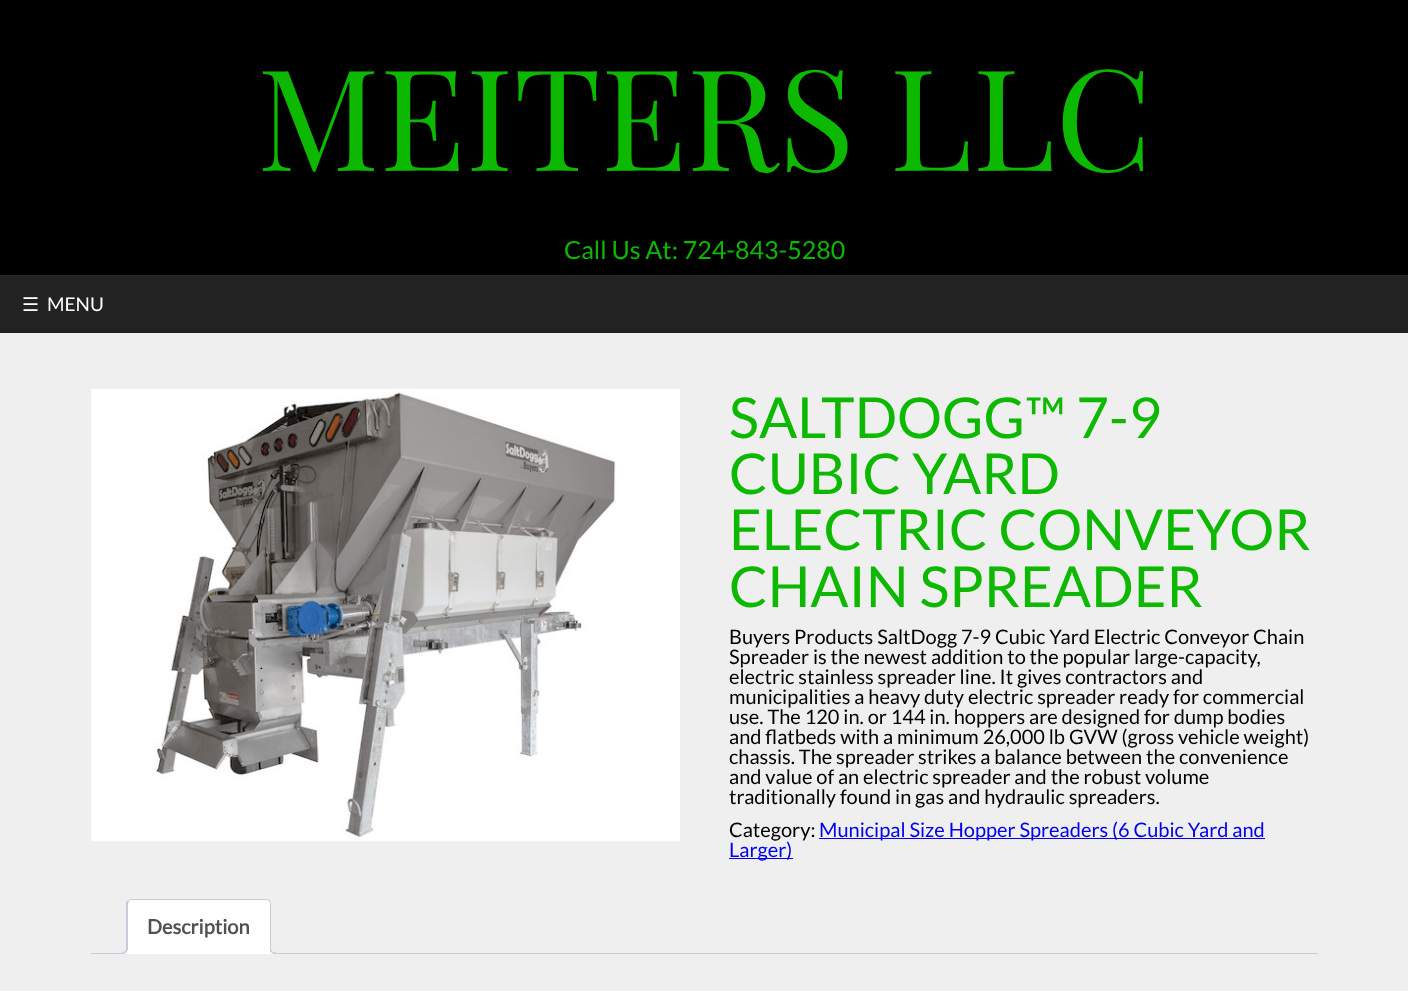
<svg xmlns="http://www.w3.org/2000/svg" width="1408" height="991">
<defs>
<clipPath id="clip1"><rect x="91" y="899" width="1227" height="55"/></clipPath>
</defs>
<rect width="100%" height="100%" fill="#000"/>
<text x="257" y="171" style="font-family:Playfair Display;font-size:141px;fill:#0db900">MEITERS LLC</text>
<text x="564" y="259" style="font-family:Lato;font-size:25px;fill:#0db900">Call Us At: 724-843-5280</text>
<rect y="275" width="1408" height="58" fill="#222"/>
<text x="22" y="311" style="font-family:DejaVu Sans;font-size:19px;fill:#fff">☰</text>
<text x="47" y="311" style="font-family:Lato;font-size:19px;fill:#fff">MENU</text>
<rect y="333" width="1408" height="658" fill="#efefef"/>
<image x="91" y="388" width="589" height="454" href="media/1.png"/>
<text x="729" y="438" style="font-family:Lato;font-size:56.4px;fill:#0db900">SALTDOGG™ 7-9</text>
<text x="729" y="494" style="font-family:Lato;font-size:56.4px;fill:#0db900">CUBIC YARD</text>
<text x="729" y="550" style="font-family:Lato;font-size:56.4px;fill:#0db900">ELECTRIC CONVEYOR</text>
<text x="729" y="607" style="font-family:Lato;font-size:56.4px;fill:#0db900">CHAIN SPREADER</text>
<text x="729" y="644" style="font-family:Lato;font-size:20px;fill:#000">Buyers Products SaltDogg 7-9 Cubic Yard Electric Conveyor Chain</text>
<text x="729" y="664" style="font-family:Lato;font-size:20px;fill:#000">Spreader is the newest addition to the popular large-capacity,</text>
<text x="729" y="684" style="font-family:Lato;font-size:20px;fill:#000">electric stainless spreader line. It gives contractors and</text>
<text x="729" y="704" style="font-family:Lato;font-size:20px;fill:#000">municipalities a heavy duty electric spreader ready for commercial</text>
<text x="729" y="724" style="font-family:Lato;font-size:20px;fill:#000">use. The 120 in. or 144 in. hoppers are designed for dump bodies</text>
<text x="729" y="744" style="font-family:Lato;font-size:20px;fill:#000">and flatbeds with a minimum 26,000 lb GVW (gross vehicle weight)</text>
<text x="729" y="764" style="font-family:Lato;font-size:20px;fill:#000">chassis. The spreader strikes a balance between the convenience</text>
<text x="729" y="784" style="font-family:Lato;font-size:20px;fill:#000">and value of an electric spreader and the robust volume</text>
<text x="729" y="804" style="font-family:Lato;font-size:20px;fill:#000">traditionally found in gas and hydraulic spreaders.</text>
<text x="729" y="837" style="font-family:Lato;font-size:20px;fill:#000">Category:</text>
<rect x="819" y="838" width="446" height="1" fill="#00e"/>
<text x="819" y="837" style="font-family:Lato;font-size:20px;fill:#00e">Municipal Size Hopper Spreaders (6 Cubic Yard and</text>
<rect x="729" y="858" width="64" height="1" fill="#00e"/>
<text x="729" y="857" style="font-family:Lato;font-size:20px;fill:#00e">Larger)</text>
<rect x="91" y="953" width="1227" height="1" fill="#cfc8d8"/>
<path d="M131 899h135c3 0 5 2 5 5v50h-145v-50c0-3 2-5 5-5z" fill="#fff"/>
<path d="M131 899l-3 1l1 1l2-1h135l3 1l1-1c-1 0-2-1-4-1z" fill="#cfc8d8"/>
<path d="M271 954v-50c0-2-1-3-1-4l-1 1l1 2v49z" fill="#cfc8d8"/>
<path d="M271 954h-145l2-2h142z" fill="#fff"/>
<path d="M126 954l2-2v-48l1-3l-1-1l-2 2z" fill="#cfc8d8"/>
<text x="147" y="934" style="font-family:Lato;font-size:20px;font-weight:bold;fill:#515151">Description</text>
<g clip-path="url(#clip1)">
<path d="M124 953.5v2.5c4 0 6-2 6-6h-2.5c-.5 1.5-2 3-3.5 3.5z" fill="#fff"/>
</g>
<path d="M121 947.5h6.5c0 4.5-2 6.5-6.5 6.5zm0 0h5c0 3.5-1 5-5 5z" fill="#cfc8d8" fill-rule="evenodd"/>
<g clip-path="url(#clip1)">
<path d="M268 950c0 4 2 6 6 6v-2.5c-2 0-3.5-1.5-4-3.5z" fill="#fff"/>
</g>
<path d="M270 947.5h6v6.5c-3 0-6-1.5-6-5zm1 0h5v5c-2 0-5-1-5-3.5z" fill="#cfc8d8" fill-rule="evenodd"/>
</svg>
